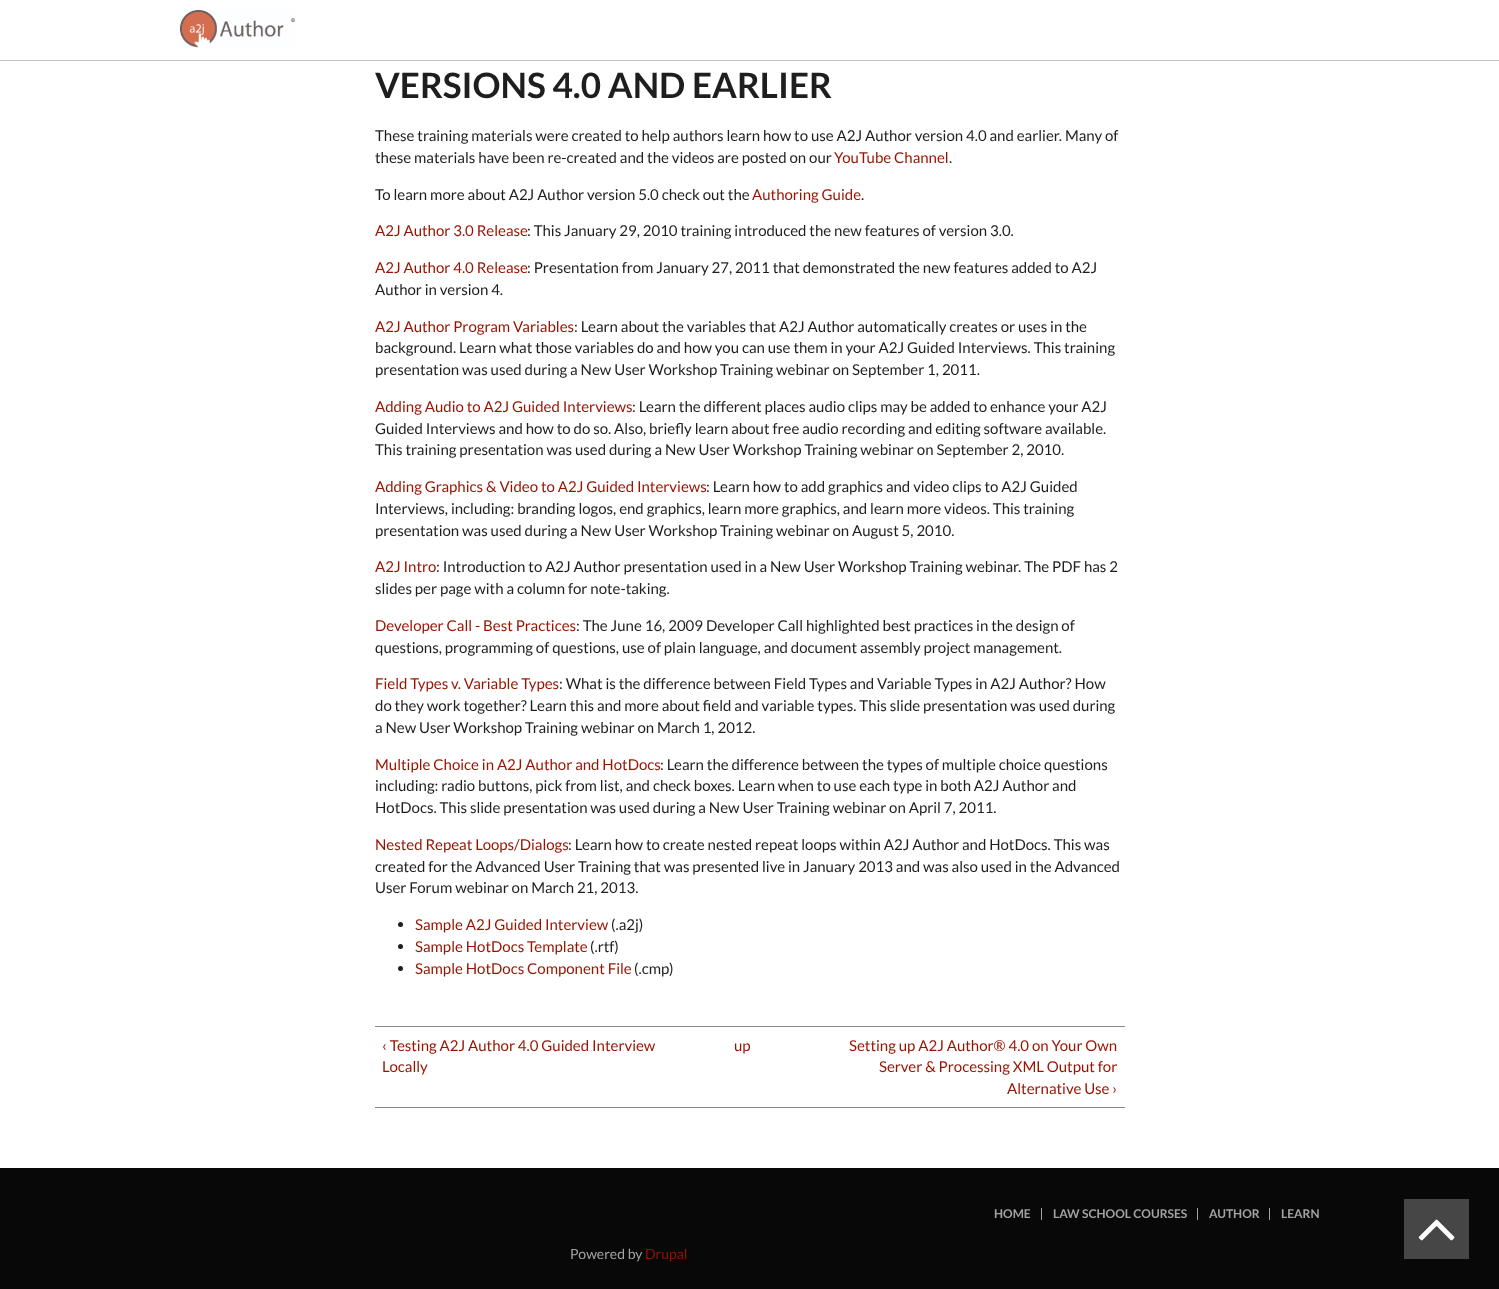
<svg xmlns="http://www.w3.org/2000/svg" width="1499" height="1289">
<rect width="100%" height="100%" fill="#fff"/>
<rect y="60" width="1499" height="1" fill="#c2c2c2"/>
<image x="179" y="10" width="116" height="38" href="media/1.png"/>
<text x="375" y="98" style="font-family:Lato;font-size:35px;font-weight:bold;fill:#1e1e1e">VERSIONS 4.0 AND EARLIER</text>
<text x="375" y="141" style="font-family:Lato;font-size:15px;fill:#1e1e1e">These training materials were created to help authors learn how to use A2J Author version 4.0 and earlier. Many of</text>
<text x="375" y="163" style="font-family:Lato;font-size:15px;fill:#1e1e1e">these materials have been re-created and the videos are posted on our</text>
<text x="834" y="163" style="font-family:Lato;font-size:15px;fill:#961300">YouTube Channel</text>
<text x="949" y="163" style="font-family:Lato;font-size:15px;fill:#1e1e1e">.</text>
<text x="375" y="200" style="font-family:Lato;font-size:15px;fill:#1e1e1e">To learn more about A2J Author version 5.0 check out the</text>
<text x="752" y="200" style="font-family:Lato;font-size:15px;fill:#961300">Authoring Guide</text>
<text x="861" y="200" style="font-family:Lato;font-size:15px;fill:#1e1e1e">.</text>
<text x="375" y="236" style="font-family:Lato;font-size:15px;fill:#961300">A2J Author 3.0 Release</text>
<text x="527" y="236" style="font-family:Lato;font-size:15px;fill:#1e1e1e">: This January 29, 2010 training introduced the new features of version 3.0.</text>
<text x="375" y="273" style="font-family:Lato;font-size:15px;fill:#961300">A2J Author 4.0 Release</text>
<text x="527" y="273" style="font-family:Lato;font-size:15px;fill:#1e1e1e">: Presentation from January 27, 2011 that demonstrated the new features added to A2J</text>
<text x="375" y="295" style="font-family:Lato;font-size:15px;fill:#1e1e1e">Author in version 4.</text>
<text x="375" y="332" style="font-family:Lato;font-size:15px;fill:#961300">A2J Author Program Variables</text>
<text x="574" y="332" style="font-family:Lato;font-size:15px;fill:#1e1e1e">: Learn about the variables that A2J Author automatically creates or uses in the</text>
<text x="375" y="353" style="font-family:Lato;font-size:15px;fill:#1e1e1e">background. Learn what those variables do and how you can use them in your A2J Guided Interviews. This training</text>
<text x="375" y="375" style="font-family:Lato;font-size:15px;fill:#1e1e1e">presentation was used during a New User Workshop Training webinar on September 1, 2011.</text>
<text x="375" y="412" style="font-family:Lato;font-size:15px;fill:#961300">Adding Audio to A2J Guided Interviews</text>
<text x="632" y="412" style="font-family:Lato;font-size:15px;fill:#1e1e1e">: Learn the different places audio clips may be added to enhance your A2J</text>
<text x="375" y="434" style="font-family:Lato;font-size:15px;fill:#1e1e1e">Guided Interviews and how to do so. Also, briefly learn about free audio recording and editing software available.</text>
<text x="375" y="455" style="font-family:Lato;font-size:15px;fill:#1e1e1e">This training presentation was used during a New User Workshop Training webinar on September 2, 2010.</text>
<text x="375" y="492" style="font-family:Lato;font-size:15px;fill:#961300">Adding Graphics &amp; Video to A2J Guided Interviews</text>
<text x="706" y="492" style="font-family:Lato;font-size:15px;fill:#1e1e1e">: Learn how to add graphics and video clips to A2J Guided</text>
<text x="375" y="514" style="font-family:Lato;font-size:15px;fill:#1e1e1e">Interviews, including: branding logos, end graphics, learn more graphics, and learn more videos. This training</text>
<text x="375" y="536" style="font-family:Lato;font-size:15px;fill:#1e1e1e">presentation was used during a New User Workshop Training webinar on August 5, 2010.</text>
<text x="375" y="572" style="font-family:Lato;font-size:15px;fill:#961300">A2J Intro</text>
<text x="436" y="572" style="font-family:Lato;font-size:15px;fill:#1e1e1e">: Introduction to A2J Author presentation used in a New User Workshop Training webinar. The PDF has 2</text>
<text x="375" y="594" style="font-family:Lato;font-size:15px;fill:#1e1e1e">slides per page with a column for note-taking.</text>
<text x="375" y="631" style="font-family:Lato;font-size:15px;fill:#961300">Developer Call - Best Practices</text>
<text x="576" y="631" style="font-family:Lato;font-size:15px;fill:#1e1e1e">: The June 16, 2009 Developer Call highlighted best practices in the design of</text>
<text x="375" y="653" style="font-family:Lato;font-size:15px;fill:#1e1e1e">questions, programming of questions, use of plain language, and document assembly project management.</text>
<text x="375" y="689" style="font-family:Lato;font-size:15px;fill:#961300">Field Types v. Variable Types</text>
<text x="559" y="689" style="font-family:Lato;font-size:15px;fill:#1e1e1e">: What is the difference between Field Types and Variable Types in A2J Author? How</text>
<text x="375" y="711" style="font-family:Lato;font-size:15px;fill:#1e1e1e">do they work together? Learn this and more about field and variable types. This slide presentation was used during</text>
<text x="375" y="733" style="font-family:Lato;font-size:15px;fill:#1e1e1e">a New User Workshop Training webinar on March 1, 2012.</text>
<text x="375" y="770" style="font-family:Lato;font-size:15px;fill:#961300">Multiple Choice in A2J Author and HotDocs</text>
<text x="660" y="770" style="font-family:Lato;font-size:15px;fill:#1e1e1e">: Learn the difference between the types of multiple choice questions</text>
<text x="375" y="791" style="font-family:Lato;font-size:15px;fill:#1e1e1e">including: radio buttons, pick from list, and check boxes. Learn when to use each type in both A2J Author and</text>
<text x="375" y="813" style="font-family:Lato;font-size:15px;fill:#1e1e1e">HotDocs. This slide presentation was used during a New User Training webinar on April 7, 2011.</text>
<text x="375" y="850" style="font-family:Lato;font-size:15px;fill:#961300">Nested Repeat Loops/Dialogs</text>
<text x="568" y="850" style="font-family:Lato;font-size:15px;fill:#1e1e1e">: Learn how to create nested repeat loops within A2J Author and HotDocs. This was</text>
<text x="375" y="872" style="font-family:Lato;font-size:15px;fill:#1e1e1e">created for the Advanced User Training that was presented live in January 2013 and was also used in the Advanced</text>
<text x="375" y="893" style="font-family:Lato;font-size:15px;fill:#1e1e1e">User Forum webinar on March 21, 2013.</text>
<circle cx="400.5" cy="924.5" r="2.5" fill="#1e1e1e"/>
<text x="415" y="930" style="font-family:Lato;font-size:15px;fill:#961300">Sample A2J Guided Interview</text>
<text x="611" y="930" style="font-family:Lato;font-size:15px;fill:#1e1e1e">(.a2j)</text>
<circle cx="400.5" cy="946.5" r="2.5" fill="#1e1e1e"/>
<text x="415" y="952" style="font-family:Lato;font-size:15px;fill:#961300">Sample HotDocs Template</text>
<text x="590" y="952" style="font-family:Lato;font-size:15px;fill:#1e1e1e">(.rtf)</text>
<circle cx="400.5" cy="968.5" r="2.5" fill="#1e1e1e"/>
<text x="415" y="974" style="font-family:Lato;font-size:15px;fill:#961300">Sample HotDocs Component File</text>
<text x="634" y="974" style="font-family:Lato;font-size:15px;fill:#1e1e1e">(.cmp)</text>
<rect x="375" y="1026" width="750" height="1" fill="#888"/>
<rect x="375" y="1107" width="750" height="1" fill="#888"/>
<text x="382" y="1051" style="font-family:Lato;font-size:15px;fill:#961300">‹ Testing A2J Author 4.0 Guided Interview</text>
<text x="382" y="1072" style="font-family:Lato;font-size:15px;fill:#961300">Locally</text>
<text x="734" y="1051" style="font-family:Lato;font-size:15px;fill:#961300">up</text>
<text x="849" y="1051" style="font-family:Lato;font-size:15px;fill:#961300">Setting up A2J Author® 4.0 on Your Own</text>
<text x="879" y="1072" style="font-family:Lato;font-size:15px;fill:#961300">Server &amp; Processing XML Output for</text>
<text x="1007" y="1094" style="font-family:Lato;font-size:15px;fill:#961300">Alternative Use ›</text>
<rect y="1168" width="1499" height="121" fill="#080808"/>
<rect x="1041" y="1208" width="1" height="12" fill="#a3a3a3"/>
<text x="994" y="1218" style="font-family:Lato;font-size:12px;font-weight:bold;fill:#a3a3a3">HOME</text>
<rect x="1197" y="1208" width="1" height="12" fill="#a3a3a3"/>
<text x="1053" y="1218" style="font-family:Lato;font-size:12px;font-weight:bold;fill:#a3a3a3">LAW SCHOOL COURSES</text>
<rect x="1269" y="1208" width="1" height="12" fill="#a3a3a3"/>
<text x="1209" y="1218" style="font-family:Lato;font-size:12px;font-weight:bold;fill:#a3a3a3">AUTHOR</text>
<text x="1281" y="1218" style="font-family:Lato;font-size:12px;font-weight:bold;fill:#a3a3a3">LEARN</text>
<text x="570" y="1259" style="font-family:Lato;font-size:14px;fill:#a3a3a3">Powered by</text>
<text x="645" y="1259" style="font-family:Lato;font-size:14px;fill:#961300">Drupal</text>
<rect x="1404" y="1199" width="65" height="60" fill="#464646"/>
<image x="1418" y="1219" width="37" height="22" href="media/2.png"/>
</svg>
